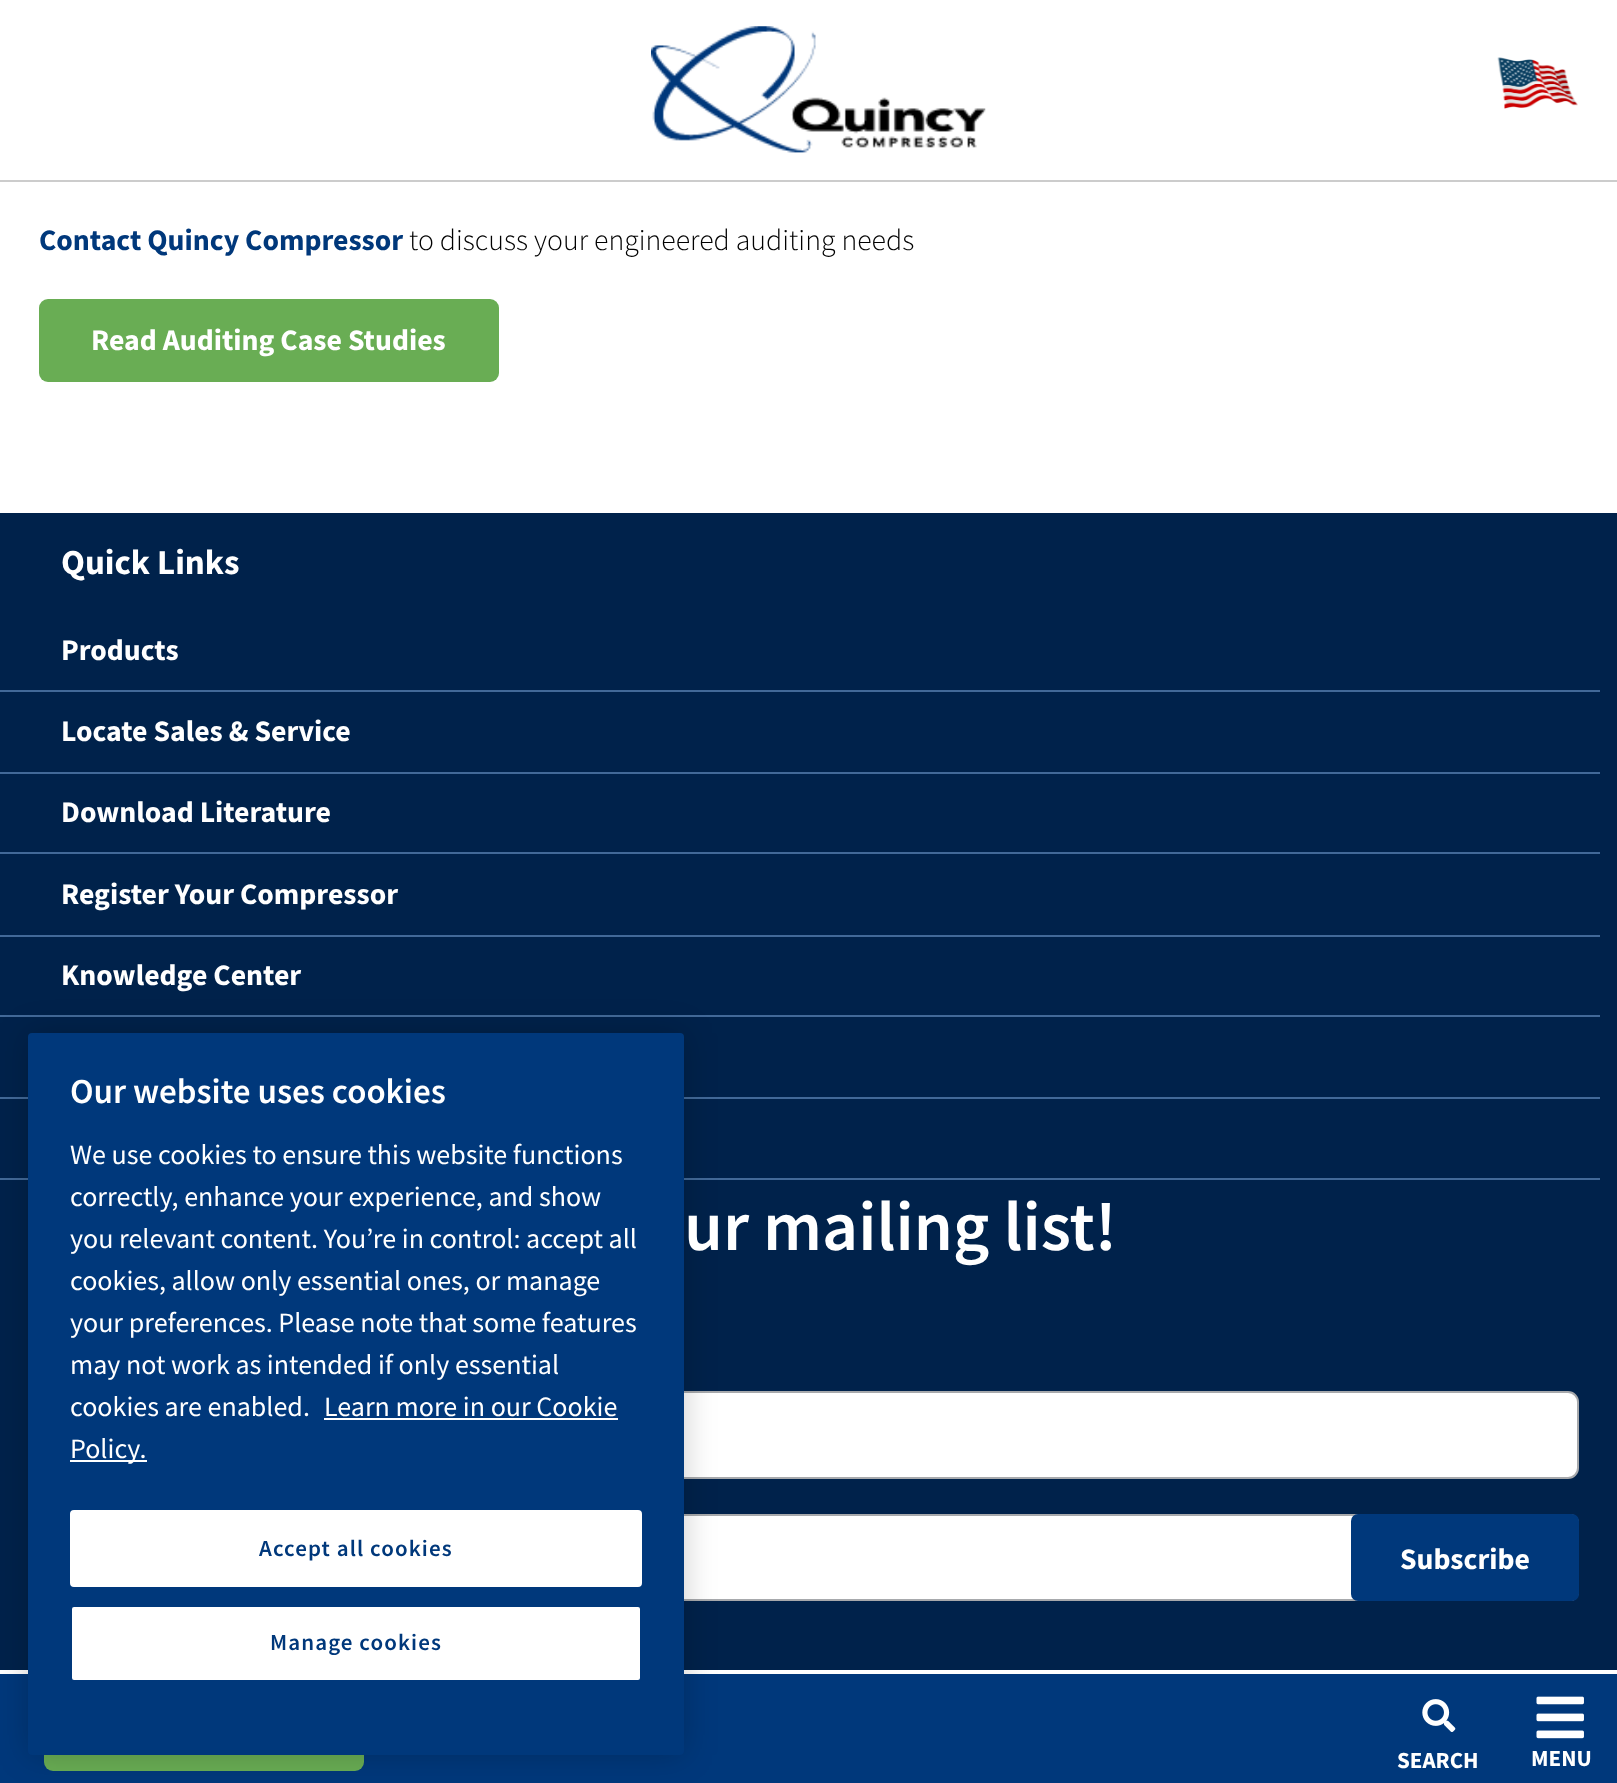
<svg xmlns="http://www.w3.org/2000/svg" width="1617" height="1783">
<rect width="100%" height="100%" fill="#fff"/>
<text x="39" y="250" style="font-family:Source Sans Pro;font-size:29.75px;font-weight:bold;fill:#00387b">Contact Quincy Compressor</text>
<text x="409" y="250" style="font-family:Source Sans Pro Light;font-size:29.75px;font-weight:300;fill:#000">to discuss your engineered auditing needs</text>
<rect x="39" y="299" width="460" height="83" rx="9" fill="#69ad54"/>
<text x="91" y="350" style="font-family:Source Sans Pro;font-size:29.75px;font-weight:bold;fill:#fff">Read Auditing Case Studies</text>
<rect y="513" width="1617" height="1157" fill="#00224b"/>
<text x="61" y="574" style="font-family:Source Sans Pro;font-size:35px;font-weight:bold;fill:#fff">Quick Links</text>
<rect y="690" width="1600" height="2" fill="#426998"/>
<text x="61" y="660" style="font-family:Source Sans Pro;font-size:29.75px;font-weight:bold;fill:#fff">Products</text>
<rect y="772" width="1600" height="2" fill="#426998"/>
<text x="61" y="741" style="font-family:Source Sans Pro;font-size:29.75px;font-weight:bold;fill:#fff">Locate Sales &amp; Service</text>
<rect y="852" width="1600" height="2" fill="#426998"/>
<text x="61" y="822" style="font-family:Source Sans Pro;font-size:29.75px;font-weight:bold;fill:#fff">Download Literature</text>
<rect y="935" width="1600" height="2" fill="#426998"/>
<text x="61" y="904" style="font-family:Source Sans Pro;font-size:29.75px;font-weight:bold;fill:#fff">Register Your Compressor</text>
<rect y="1015" width="1600" height="2" fill="#426998"/>
<text x="61" y="985" style="font-family:Source Sans Pro;font-size:29.75px;font-weight:bold;fill:#fff">Knowledge Center</text>
<rect y="1097" width="1600" height="2" fill="#426998"/>
<rect y="1178" width="1600" height="2" fill="#426998"/>
<rect x="40" y="1392" width="1538" height="86" rx="10" fill="#fff" stroke="#a7a9ac" stroke-width="2"/>
<path d="M40 1515h1530c4.5 0 8 3.5 8 8v69c0 4.5-3.5 8-8 8h-1530z" fill="#fff" stroke="#a7a9ac" stroke-width="2"/>
<rect y="1674" width="1617" height="109" fill="#00387b"/>
<rect x="44" y="1689" width="320" height="82" rx="9" fill="#69ad54"/>
<rect x="28" y="1033" width="656" height="722" rx="4" fill="#00000033" filter="blur(16px)"/>
<rect x="28" y="1033" width="656" height="722" rx="4" fill="#00387b"/>
<text x="70" y="1103" style="font-family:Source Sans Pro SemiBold;font-size:35px;font-weight:600;fill:#fff">Our website uses cookies</text>
<text x="70" y="1164" style="font-family:Source Sans Pro;font-size:28px;fill:#fff">We use cookies to ensure this website functions</text>
<text x="70" y="1206" style="font-family:Source Sans Pro;font-size:28px;fill:#fff">correctly, enhance your experience, and show</text>
<text x="70" y="1248" style="font-family:Source Sans Pro;font-size:28px;fill:#fff">you relevant content. You’re in control: accept all</text>
<text x="70" y="1290" style="font-family:Source Sans Pro;font-size:28px;fill:#fff">cookies, allow only essential ones, or manage</text>
<text x="70" y="1332" style="font-family:Source Sans Pro;font-size:28px;fill:#fff">your preferences. Please note that some features</text>
<text x="70" y="1374" style="font-family:Source Sans Pro;font-size:28px;fill:#fff">may not work as intended if only essential</text>
<text x="70" y="1416" style="font-family:Source Sans Pro;font-size:28px;fill:#fff">cookies are enabled.</text>
<text x="324" y="1416" style="font-family:Source Sans Pro;font-size:28px;fill:#fff">Learn more in our Cookie</text>
<rect x="324" y="1418" width="294" height="2" fill="#fff"/>
<rect x="70" y="1460" width="77" height="2" fill="#fff"/>
<text x="70" y="1458" style="font-family:Source Sans Pro;font-size:28px;fill:#fff">Policy.</text>
<rect x="71" y="1511" width="570" height="75" rx="3" fill="#fff" stroke="#fff" stroke-width="2"/>
<text x="259" y="1556" style="font-family:Source Sans Pro SemiBold;font-size:23px;font-weight:600;letter-spacing:1.1px;fill:#00387b">Accept all cookies</text>
<rect x="71" y="1606" width="570" height="75" rx="3" fill="#fff" stroke="#00387b" stroke-width="2"/>
<text x="270" y="1650" style="font-family:Source Sans Pro SemiBold;font-size:23px;font-weight:600;letter-spacing:1.1px;fill:#00387b">Manage cookies</text>
<text x="684" y="1250" style="font-family:Source Sans Pro SemiBold;font-size:70px;font-weight:600;fill:#fff">ur mailing list!</text>
<rect x="1351" y="1514" width="228" height="87" rx="7" fill="#00387b"/>
<text x="1400" y="1569" style="font-family:Source Sans Pro;font-size:29.75px;font-weight:bold;fill:#fff">Subscribe</text>
<rect y="180" width="1617" height="2" fill="#ccc"/>
<image x="651" y="26" width="335" height="127" href="media/1.png"/>
<image x="1497" y="57" width="81" height="52" href="media/2.png"/>
<image x="1422" y="1699" width="34" height="33" href="media/3.png"/>
<text x="1397" y="1768" style="font-family:Source Sans Pro;font-size:23px;font-weight:bold;fill:#fff">SEARCH</text>
<image x="1536" y="1696" width="48" height="43" href="media/4.png"/>
<text x="1531" y="1766" style="font-family:Source Sans Pro;font-size:23px;font-weight:bold;fill:#fff">MENU</text>
</svg>
